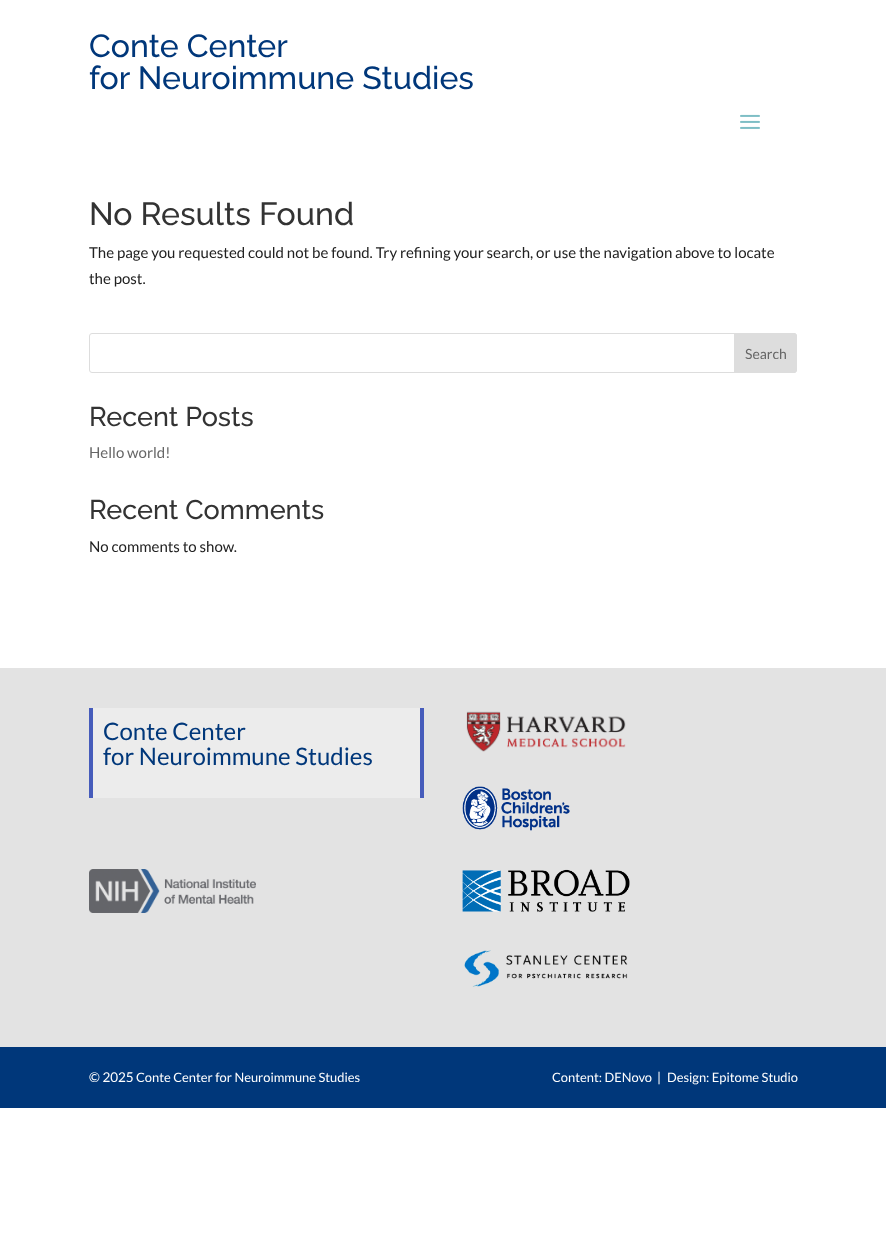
<svg xmlns="http://www.w3.org/2000/svg" width="886" height="1234">
<rect width="100%" height="100%" fill="#fff"/>
<text x="89" y="57" style="font-family:Raleway;font-size:32px;font-weight:100;fill:#00377a">Conte Center</text>
<text x="89" y="89" style="font-family:Raleway;font-size:32px;font-weight:100;fill:#00377a">for Neuroimmune Studies</text>
<image x="740" y="114" width="20" height="15" href="media/1.png"/>
<text x="89" y="225" style="font-family:Raleway;font-size:32px;font-weight:100;fill:#333">No Results Found</text>
<text x="89" y="258" style="font-family:Lato;font-size:15px;fill:#212121">The page you requested could not be found. Try refining your search, or use the navigation above to locate</text>
<text x="89" y="284" style="font-family:Lato;font-size:15px;fill:#212121">the post.</text>
<rect x="89.5" y="333.5" width="707" height="39" rx="2.5" fill="none" stroke="#ddd"/>
<path d="M734.5 333.5h59.5c1.5 0 2.5 1 2.5 2.5v34c0 1.5-1 2.5-2.5 2.5h-59.5z" fill="#ddd" stroke="#ddd"/>
<text x="745" y="359" style="font-family:Lato;font-size:14px;fill:#666">Search</text>
<text x="89" y="426" style="font-family:Raleway;font-size:27px;font-weight:100;fill:#333">Recent Posts</text>
<text x="89" y="458" style="font-family:Lato;font-size:15px;fill:#666">Hello world!</text>
<text x="89" y="519" style="font-family:Raleway;font-size:27px;font-weight:100;fill:#333">Recent Comments</text>
<text x="89" y="552" style="font-family:Lato;font-size:15px;fill:#212121">No comments to show.</text>
<rect y="668" width="886" height="379" fill="#e3e3e3"/>
<rect x="93" y="708" width="327" height="90" fill="#ececec"/>
<rect x="420" y="708" width="4" height="90" fill="#465cbb"/>
<rect x="89" y="708" width="4" height="90" fill="#465cbb"/>
<text x="103" y="740" style="font-family:Lato;font-size:24px;fill:#00377a">Conte Center</text>
<text x="103" y="765" style="font-family:Lato;font-size:24px;fill:#00377a">for Neuroimmune Studies</text>
<image x="466" y="711" width="160" height="41" href="media/2.png"/>
<image x="462" y="786" width="108" height="45" href="media/3.png"/>
<image x="89" y="869" width="167" height="44" href="media/4.png"/>
<image x="462" y="869" width="168" height="43" href="media/5.png"/>
<image x="464" y="950" width="164" height="37" href="media/6.png"/>
<rect y="1047" width="886" height="61" fill="#00377a"/>
<text x="89" y="1082" style="font-family:Lato;font-size:13.5px;fill:#fff">© 2025</text>
<text x="136" y="1082" style="font-family:Lato;font-size:12.9px;fill:#fff">Conte Center for Neuroimmune Studies</text>
<text x="552" y="1082" style="font-family:Lato;font-size:12.9px;fill:#fff">Content: DENovo</text>
<text x="657" y="1082" style="font-family:Lato;font-size:13.5px;fill:#fff">|</text>
<text x="667" y="1082" style="font-family:Lato;font-size:12.9px;fill:#fff">Design: Epitome Studio</text>
</svg>
